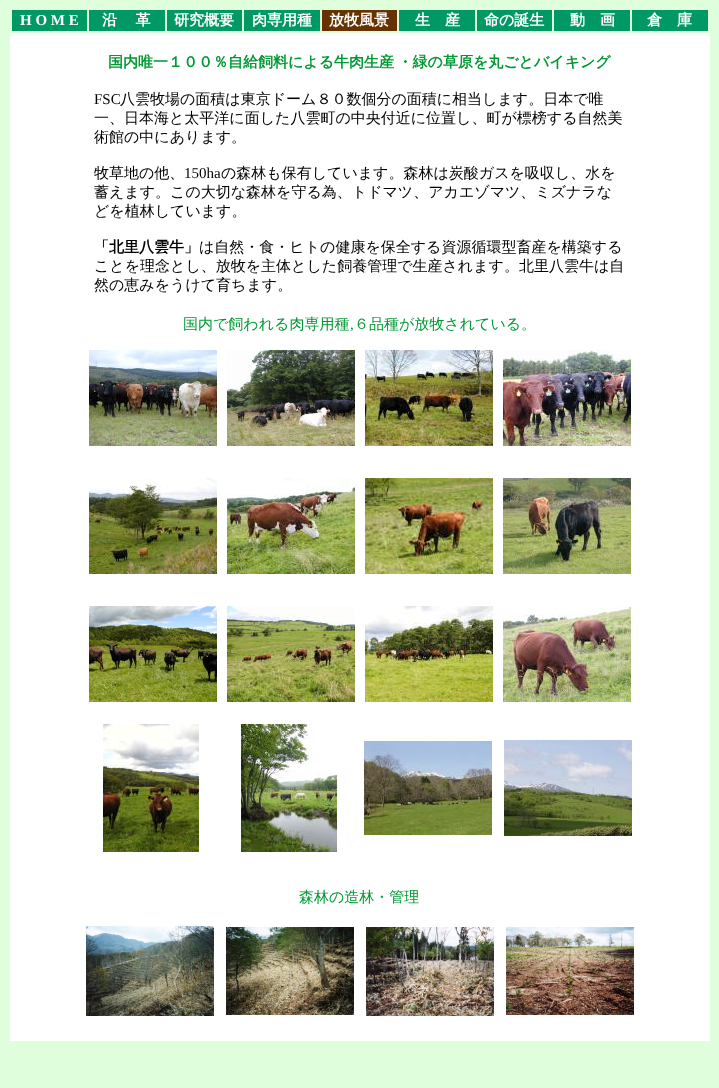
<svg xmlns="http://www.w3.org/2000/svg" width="719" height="1088">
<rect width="100%" height="100%" fill="#dfffdc"/>
<rect x="12" y="10" width="75" height="21" fill="#096"/>
<text x="20" y="25" style="font-family:Liberation Serif;font-size:15px;font-weight:bold;fill:#fff">H O M E</text>
<rect x="89" y="10" width="76" height="21" fill="#096"/>
<text x="102" y="25" word-spacing="-1" style="font-family:WenQuanYi Zen Hei;font-size:15px;font-weight:bold;fill:#fff">沿　 革</text>
<rect x="167" y="10" width="75" height="21" fill="#096"/>
<text x="174" y="25" style="font-family:WenQuanYi Zen Hei;font-size:15px;font-weight:bold;fill:#fff">研究概要</text>
<rect x="244" y="10" width="76" height="21" fill="#096"/>
<text x="252" y="25" style="font-family:WenQuanYi Zen Hei;font-size:15px;font-weight:bold;fill:#fff">肉専用種</text>
<rect x="322" y="10" width="75" height="21" fill="#630"/>
<text x="329" y="25" style="font-family:WenQuanYi Zen Hei;font-size:15px;font-weight:bold;fill:#fff">放牧風景</text>
<rect x="399" y="10" width="76" height="21" fill="#096"/>
<text x="415" y="25" style="font-family:WenQuanYi Zen Hei;font-size:15px;font-weight:bold;fill:#fff">生　産</text>
<rect x="477" y="10" width="75" height="21" fill="#096"/>
<text x="484" y="25" style="font-family:WenQuanYi Zen Hei;font-size:15px;font-weight:bold;fill:#fff">命の誕生</text>
<rect x="554" y="10" width="76" height="21" fill="#096"/>
<text x="570" y="25" style="font-family:WenQuanYi Zen Hei;font-size:15px;font-weight:bold;fill:#fff">動　画</text>
<rect x="632" y="10" width="76" height="21" fill="#096"/>
<text x="647" y="25" style="font-family:WenQuanYi Zen Hei;font-size:15px;font-weight:bold;fill:#fff">倉　庫</text>
<rect x="10" y="33" width="700" height="1008" fill="#fff"/>
<text x="108" y="67" word-spacing="-1" style="font-family:WenQuanYi Zen Hei;font-size:15px;font-weight:bold;fill:#093">国内唯一１００％自給飼料による牛肉生産 ・緑の草原を丸ごとバイキング</text>
<text x="94" y="104" style="font-family:Liberation Serif;font-size:15px;fill:#000">FSC</text>
<text x="120" y="104" style="font-family:WenQuanYi Zen Hei;font-size:15px;font-weight:500;fill:#000">八雲牧場の面積は東京ドーム８０数個分の面積に相当します。日本で唯</text>
<text x="94" y="123" style="font-family:WenQuanYi Zen Hei;font-size:15px;font-weight:500;fill:#000">一、日本海と太平洋に面した八雲町の中央付近に位置し、町が標榜する自然美</text>
<text x="94" y="142" style="font-family:WenQuanYi Zen Hei;font-size:15px;font-weight:500;fill:#000">術館の中にあります。</text>
<text x="94" y="178" style="font-family:WenQuanYi Zen Hei;font-size:15px;font-weight:500;fill:#000">牧草地の他、</text>
<text x="184" y="178" style="font-family:Liberation Serif;font-size:15px;fill:#000">150ha</text>
<text x="221" y="178" style="font-family:WenQuanYi Zen Hei;font-size:15px;font-weight:500;fill:#000">の森林も保有しています。森林は炭酸ガスを吸収し、水を</text>
<text x="94" y="197" style="font-family:WenQuanYi Zen Hei;font-size:15px;font-weight:500;fill:#000">蓄えます。この大切な森林を守る為、トドマツ、アカエゾマツ、ミズナラな</text>
<text x="94" y="216" style="font-family:WenQuanYi Zen Hei;font-size:15px;font-weight:500;fill:#000">どを植林しています。</text>
<text x="94" y="252" style="font-family:WenQuanYi Zen Hei;font-size:15px;font-weight:bold;fill:#000">「北里八雲牛」</text>
<text x="199" y="252" style="font-family:WenQuanYi Zen Hei;font-size:15px;font-weight:500;fill:#000">は自然・食・ヒトの健康を保全する資源循環型畜産を構築する</text>
<text x="94" y="271" style="font-family:WenQuanYi Zen Hei;font-size:15px;font-weight:500;fill:#000">ことを理念とし、放牧を主体とした飼養管理で生産されます。北里八雲牛は自</text>
<text x="94" y="290" style="font-family:WenQuanYi Zen Hei;font-size:15px;font-weight:500;fill:#000">然の恵みをうけて育ちます。</text>
<text x="183" y="329" style="font-family:WenQuanYi Zen Hei;font-size:15px;font-weight:500;fill:#093">国内で飼われる肉専用種</text>
<text x="350" y="329" style="font-family:Liberation Serif;font-size:15px;fill:#093">,</text>
<text x="354" y="329" style="font-family:WenQuanYi Zen Hei;font-size:15px;font-weight:500;fill:#093">６品種が放牧されている。</text>
<image x="89" y="350" width="128" height="96" href="media/1.png"/>
<image x="227" y="350" width="128" height="96" href="media/2.png"/>
<image x="365" y="350" width="128" height="96" href="media/3.png"/>
<image x="503" y="350" width="128" height="96" href="media/4.png"/>
<image x="89" y="478" width="128" height="96" href="media/5.png"/>
<image x="227" y="478" width="128" height="96" href="media/6.png"/>
<image x="365" y="478" width="128" height="96" href="media/7.png"/>
<image x="503" y="478" width="128" height="96" href="media/8.png"/>
<image x="89" y="606" width="128" height="96" href="media/9.png"/>
<image x="227" y="606" width="128" height="96" href="media/10.png"/>
<image x="365" y="606" width="128" height="96" href="media/11.png"/>
<image x="503" y="606" width="128" height="96" href="media/12.png"/>
<image x="103" y="724" width="96" height="128" href="media/13.png"/>
<image x="241" y="724" width="96" height="128" href="media/14.png"/>
<image x="364" y="741" width="128" height="94" href="media/15.png"/>
<image x="504" y="740" width="128" height="96" href="media/16.png"/>
<text x="299" y="902" style="font-family:WenQuanYi Zen Hei;font-size:15px;font-weight:500;fill:#093">森林の造林・管理</text>
<image x="86" y="926" width="128" height="90" href="media/17.png"/>
<image x="226" y="927" width="128" height="88" href="media/18.png"/>
<image x="366" y="927" width="128" height="89" href="media/19.png"/>
<image x="506" y="927" width="128" height="88" href="media/20.png"/>
</svg>
